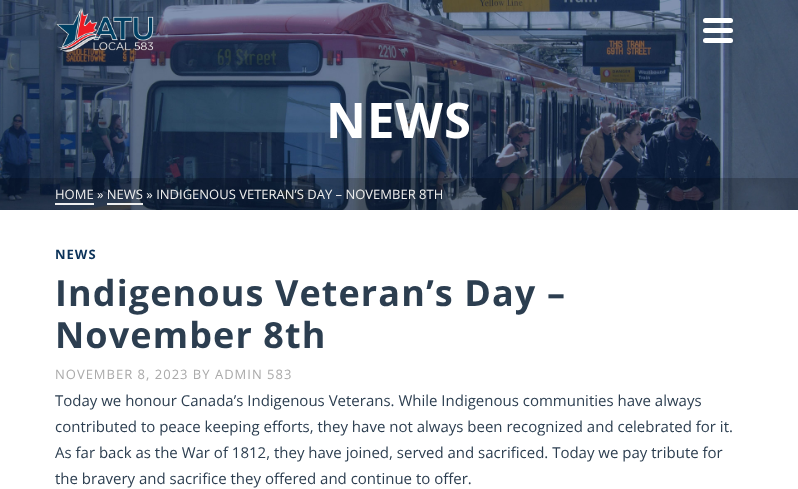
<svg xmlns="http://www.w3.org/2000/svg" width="798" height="489">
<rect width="100%" height="100%" fill="#fff"/>
<image x="0" y="0" width="798" height="210" href="media/2.png"/>
<image x="56" y="8" width="98" height="44" href="media/1.png"/>
<rect x="703" y="18" width="30" height="5" rx="2.5" fill="#fff"/>
<rect x="703" y="28" width="30" height="5" rx="2.5" fill="#fff"/>
<rect x="703" y="38" width="30" height="5" rx="2.5" fill="#fff"/>
<text x="326" y="138" style="font-family:Open Sans;font-size:49px;font-weight:bold;letter-spacing:1.1px;fill:#fff">NEWS</text>
<rect y="178" width="798" height="32" fill="#00000033"/>
<text x="55" y="199" style="font-family:Open Sans;font-size:13px;fill:#eee">HOME » NEWS » INDIGENOUS VETERAN’S DAY – NOVEMBER 8TH</text>
<rect x="55" y="203" width="39" height="2" fill="#eee"/>
<rect x="107" y="203" width="36" height="2" fill="#eee"/>
<text x="55" y="259" style="font-family:Open Sans;font-size:13px;font-weight:bold;letter-spacing:1px;fill:#0b3259">NEWS</text>
<text x="55" y="306" style="font-family:Open Sans;font-size:36px;font-weight:bold;letter-spacing:1.1px;fill:#2c3e50">Indigenous Veteran’s Day –</text>
<text x="55" y="348" style="font-family:Open Sans;font-size:36px;font-weight:bold;letter-spacing:1.1px;fill:#2c3e50">November 8th</text>
<text x="55" y="379" style="font-family:Open Sans;font-size:13px;letter-spacing:1px;fill:#aaa">NOVEMBER 8, 2023 BY ADMIN 583</text>
<text x="55" y="406" style="font-family:Open Sans;font-size:15px;fill:#2c3e50">Today we honour Canada’s Indigenous Veterans. While Indigenous communities have always</text>
<text x="55" y="432" style="font-family:Open Sans;font-size:15px;fill:#2c3e50">contributed to peace keeping efforts, they have not always been recognized and celebrated for it.</text>
<text x="55" y="458" style="font-family:Open Sans;font-size:15px;fill:#2c3e50">As far back as the War of 1812, they have joined, served and sacrificed. Today we pay tribute for</text>
<text x="55" y="484" style="font-family:Open Sans;font-size:15px;fill:#2c3e50">the bravery and sacrifice they offered and continue to offer.</text>
</svg>
